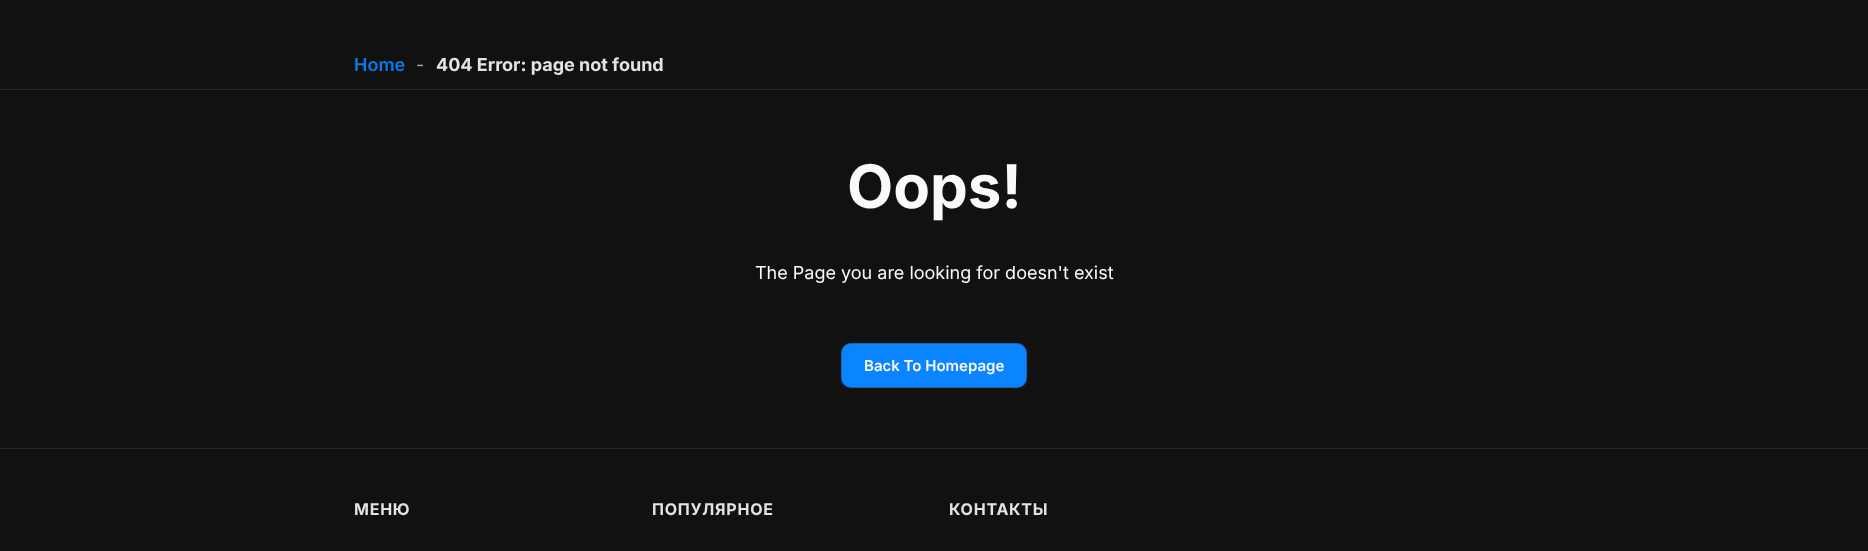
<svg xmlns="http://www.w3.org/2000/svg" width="1868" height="551">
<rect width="100%" height="100%" fill="#111"/>
<rect y="89" width="1868" height="1" fill="#282828"/>
<text x="354" y="71" style="font-family:Inter;font-size:18px;font-weight:600;fill:#0b79e7">Home</text>
<text x="416" y="71" style="font-family:Inter;font-size:18px;fill:#a4a4a4">-</text>
<text x="436" y="71" style="font-family:Inter;font-size:18px;font-weight:bold;fill:#e3e3e3">404 Error: page not found</text>
<text x="847" y="208" style="font-family:Inter;font-size:60px;font-weight:bold;fill:#fafafa">Oops!</text>
<text x="755" y="279" style="font-family:Inter;font-size:18px;fill:#fafafa">The Page you are looking for doesn't exist</text>
<rect x="841" y="343" width="186" height="45" rx="10" fill="#0a84ff"/>
<rect x="841.5" y="343.5" width="185" height="44" rx="9.5" fill="none" stroke="#1c1c1c4d"/>
<text x="864" y="371" style="font-family:Inter;font-size:15px;font-weight:600;fill:#fafafa">Back To Homepage</text>
<rect y="448" width="1868" height="1" fill="#282828"/>
<text x="354" y="515" style="font-family:Inter;font-size:16px;font-weight:bold;letter-spacing:0.75px;fill:#e3e3e3">МЕНЮ</text>
<text x="652" y="515" style="font-family:Inter;font-size:16px;font-weight:bold;letter-spacing:0.75px;fill:#e3e3e3">ПОПУЛЯРНОЕ</text>
<text x="949" y="515" style="font-family:Inter;font-size:16px;font-weight:bold;letter-spacing:0.75px;fill:#e3e3e3">КОНТАКТЫ</text>
</svg>
